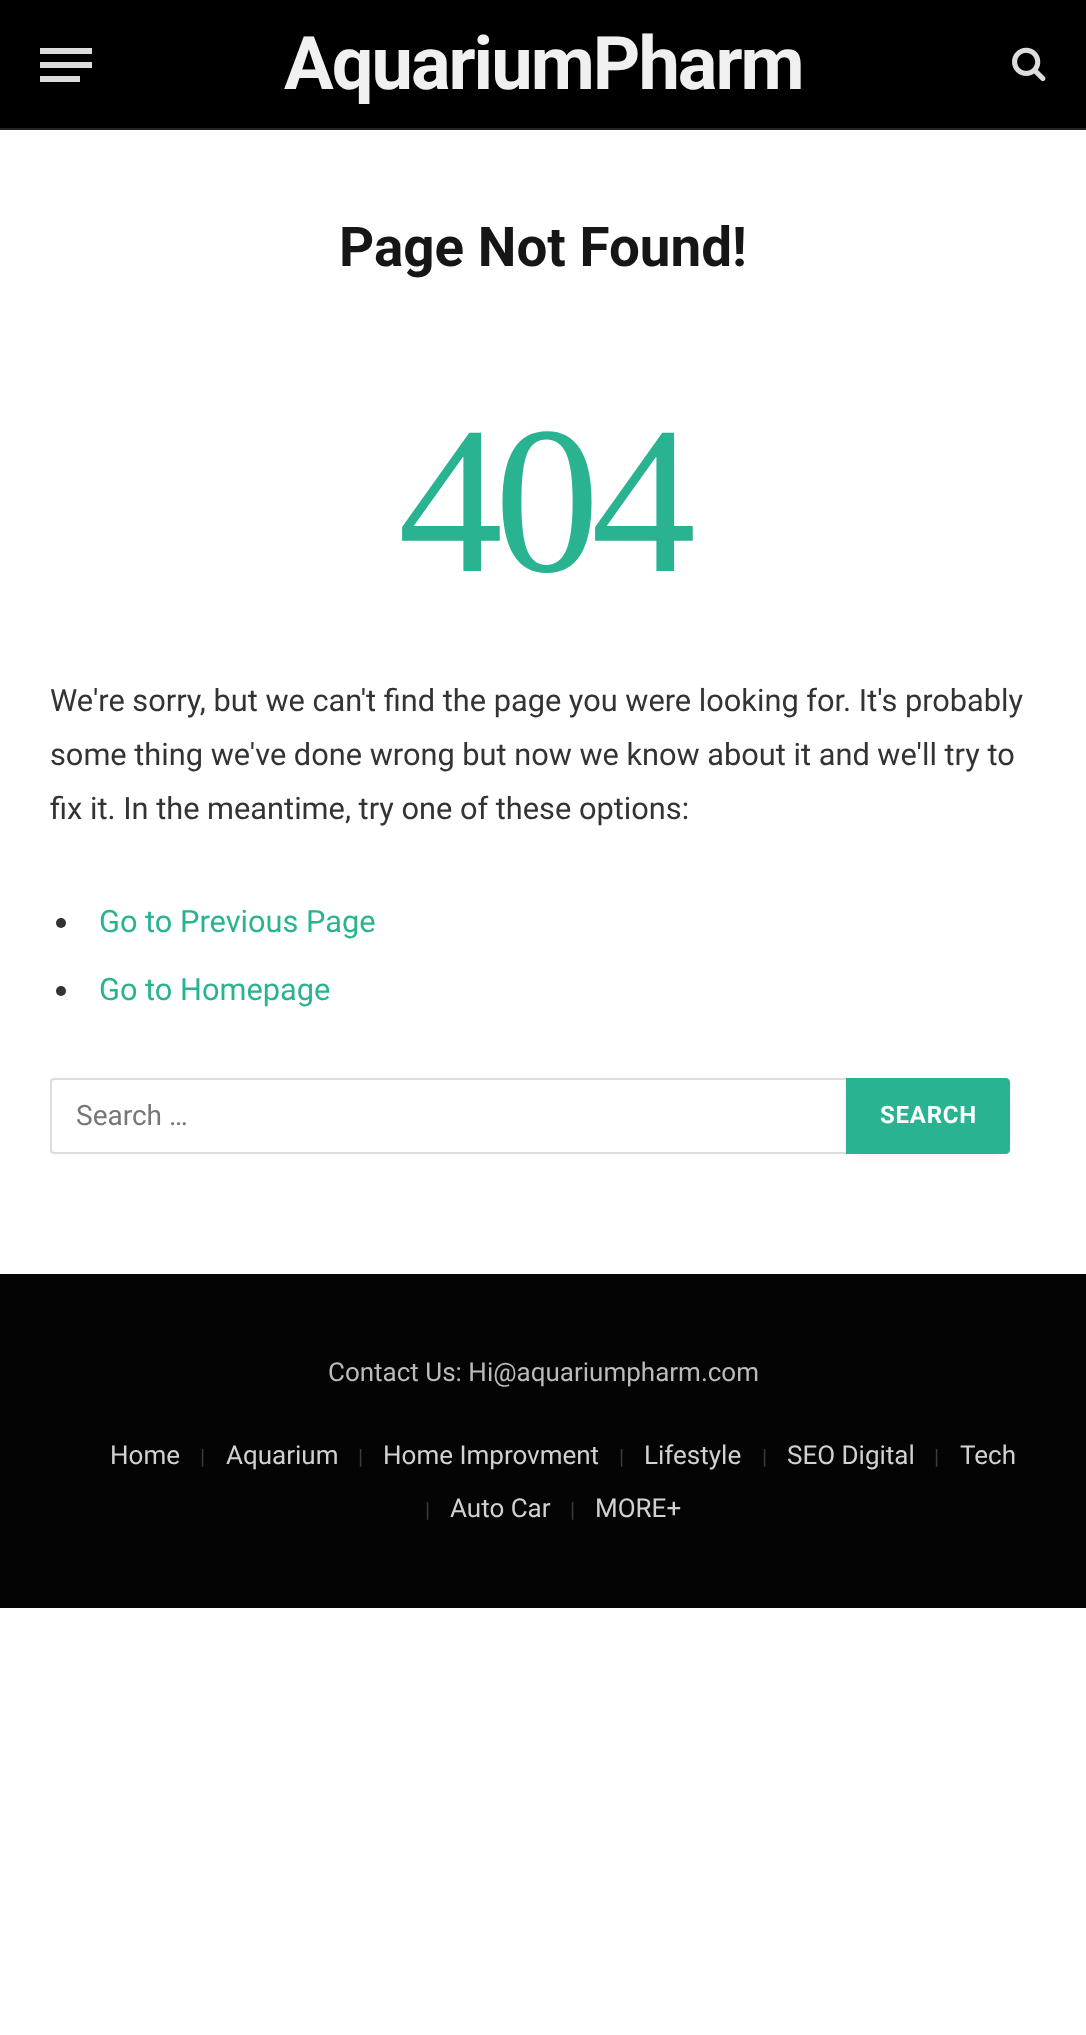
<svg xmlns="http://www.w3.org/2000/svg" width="1086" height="2035">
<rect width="100%" height="100%" fill="#fff"/>
<rect width="1086" height="128" fill="#000"/>
<rect y="128" width="1086" height="2" fill="#222"/>
<rect x="40" y="76" width="40" height="6" fill="#ddd"/>
<rect x="40" y="48" width="52" height="6" fill="#ddd"/>
<rect x="40" y="62" width="52" height="6" fill="#ddd"/>
<text x="284" y="89" style="font-family:Roboto;font-size:74px;font-weight:bold;letter-spacing:-2px;fill:#f0f0f0">AquariumPharm</text>
<image x="1012" y="47" width="34" height="35" href="media/1.png"/>
<text x="339" y="266" style="font-family:Roboto;font-size:54.75px;font-weight:bold;fill:#161616">Page Not Found!</text>
<text x="398" y="571" style="font-family:Liberation Serif;font-size:210px;letter-spacing:-8.5px;fill:#2ab391">404</text>
<text x="50" y="711" style="font-family:Roboto;font-size:30.75px;fill:#333">We're sorry, but we can't find the page you were looking for. It's probably</text>
<text x="50" y="765" style="font-family:Roboto;font-size:30.75px;fill:#333">some thing we've done wrong but now we know about it and we'll try to</text>
<text x="50" y="819" style="font-family:Roboto;font-size:30.75px;fill:#333">fix it. In the meantime, try one of these options:</text>
<circle cx="61" cy="923" r="5" fill="#333"/>
<text x="99" y="932" style="font-family:Roboto;font-size:30.75px;fill:#2ab391">Go to Previous Page</text>
<circle cx="61" cy="991" r="5" fill="#333"/>
<text x="99" y="1000" style="font-family:Roboto;font-size:30.75px;fill:#2ab391">Go to Homepage</text>
<rect x="51" y="1079" width="798" height="74" rx="3" fill="none" stroke="#ddd" stroke-width="2"/>
<text x="76" y="1125" style="font-family:Roboto;font-size:28px;fill:#777">Search …</text>
<rect x="854" y="1090" width="148" height="60" fill="#00000029" filter="blur(7px)"/>
<path d="M846 1078h160c2 0 4 2 4 4v68c0 2-2 4-4 4h-160z" fill="#2ab391"/>
<text x="880" y="1123" style="font-family:Roboto;font-size:24px;font-weight:bold;letter-spacing:0.75px;fill:#fff">SEARCH</text>
<rect y="1274" width="1086" height="334" fill="#040404"/>
<text x="328" y="1381" style="font-family:Roboto;font-size:26px;fill:#bbb">Contact Us: Hi@aquariumpharm.com</text>
<text x="110" y="1464" style="font-family:Roboto;font-size:26px;fill:#d1d1d1">Home</text>
<text x="200" y="1464" style="font-family:Roboto;font-size:21px;fill:#3b3b3b">|</text>
<text x="226" y="1464" style="font-family:Roboto;font-size:26px;fill:#d1d1d1">Aquarium</text>
<text x="358" y="1464" style="font-family:Roboto;font-size:21px;fill:#3b3b3b">|</text>
<text x="383" y="1464" style="font-family:Roboto;font-size:26px;fill:#d1d1d1">Home Improvment</text>
<text x="619" y="1464" style="font-family:Roboto;font-size:21px;fill:#3b3b3b">|</text>
<text x="644" y="1464" style="font-family:Roboto;font-size:26px;fill:#d1d1d1">Lifestyle</text>
<text x="762" y="1464" style="font-family:Roboto;font-size:21px;fill:#3b3b3b">|</text>
<text x="787" y="1464" style="font-family:Roboto;font-size:26px;fill:#d1d1d1">SEO Digital</text>
<text x="934" y="1464" style="font-family:Roboto;font-size:21px;fill:#3b3b3b">|</text>
<text x="960" y="1464" style="font-family:Roboto;font-size:26px;fill:#d1d1d1">Tech</text>
<text x="425" y="1517" style="font-family:Roboto;font-size:21px;fill:#3b3b3b">|</text>
<text x="450" y="1517" style="font-family:Roboto;font-size:26px;fill:#d1d1d1">Auto Car</text>
<text x="570" y="1517" style="font-family:Roboto;font-size:21px;fill:#3b3b3b">|</text>
<text x="595" y="1517" style="font-family:Roboto;font-size:26px;fill:#d1d1d1">MORE+</text>
</svg>
